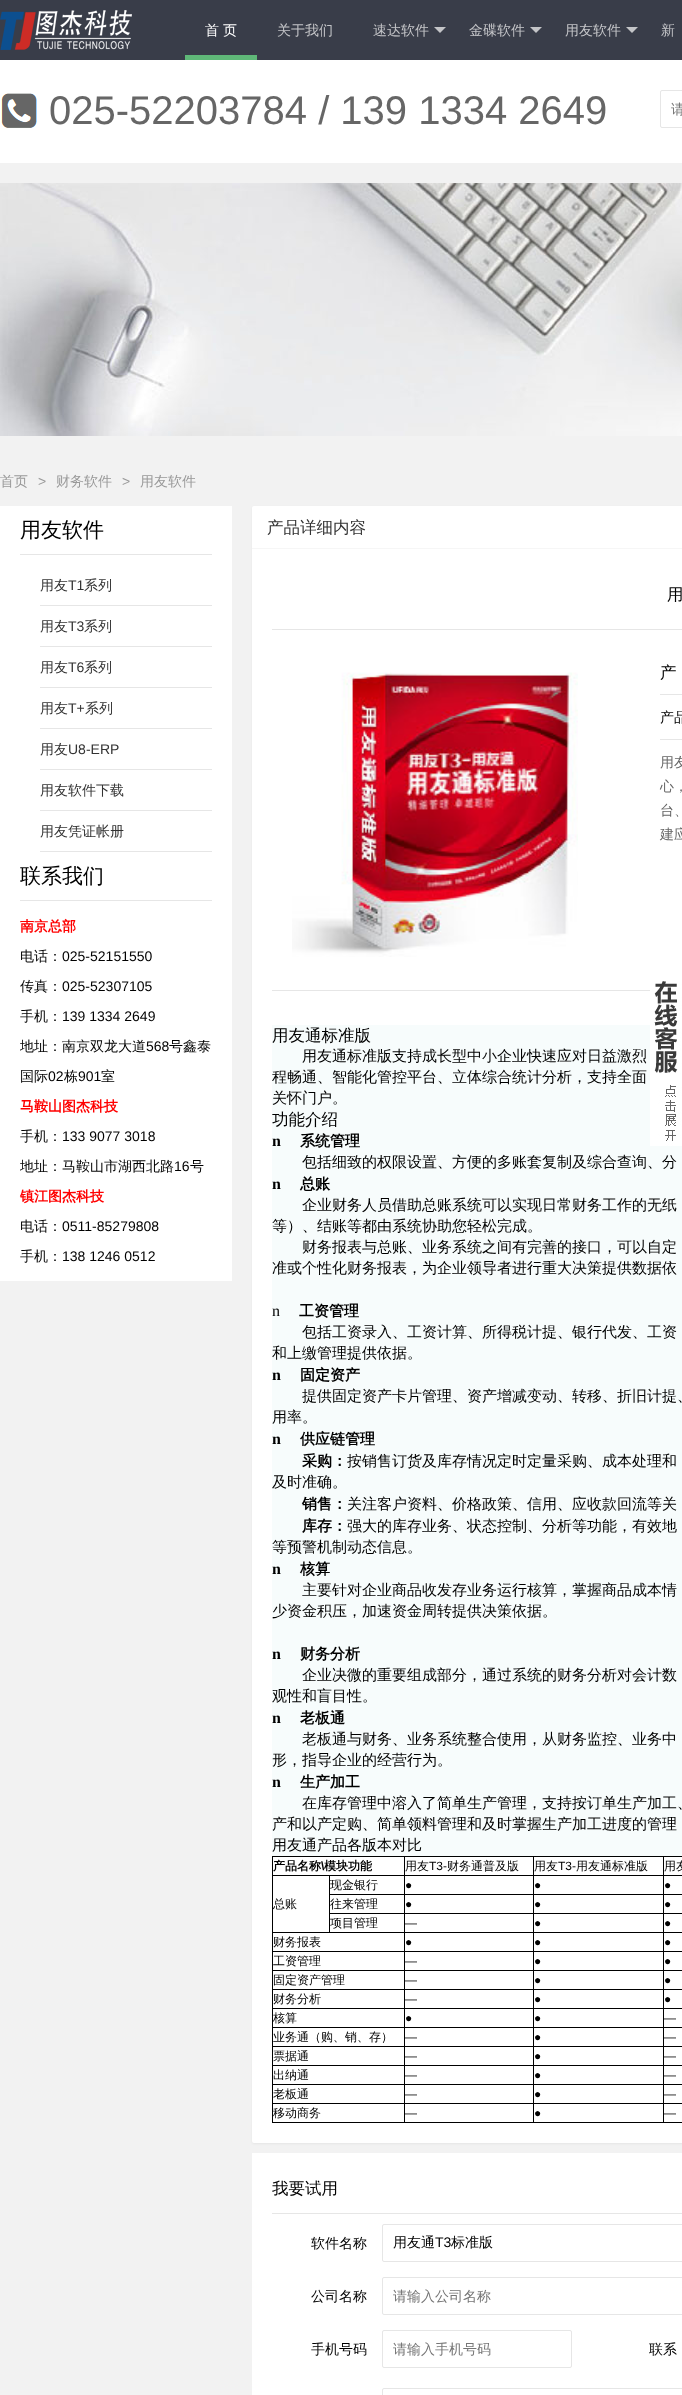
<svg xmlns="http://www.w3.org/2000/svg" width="682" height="2395">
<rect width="100%" height="100%" fill="#fff"/>
<rect width="682" height="60" fill="#393d49"/>
<image x="0" y="10" width="132" height="40" href="media/1.png"/>
<text x="205" y="35" style="font-family:WenQuanYi Zen Hei;font-size:14px;font-weight:500;fill:#fff">首</text>
<text x="223" y="35" style="font-family:WenQuanYi Zen Hei;font-size:14px;font-weight:500;fill:#fff">页</text>
<rect x="185" y="55" width="72" height="5" fill="#5fb878"/>
<text x="277" y="35" style="font-family:WenQuanYi Zen Hei;font-size:14px;font-weight:500;fill:#c4c5c8">关于我们</text>
<text x="373" y="35" style="font-family:WenQuanYi Zen Hei;font-size:14px;font-weight:500;fill:#c4c5c8">速达软件</text>
<path d="M434 27h12l-6 6z" fill="#c4c5c8"/>
<text x="469" y="35" style="font-family:WenQuanYi Zen Hei;font-size:14px;font-weight:500;fill:#c4c5c8">金碟软件</text>
<path d="M530 27h12l-6 6z" fill="#c4c5c8"/>
<text x="565" y="35" style="font-family:WenQuanYi Zen Hei;font-size:14px;font-weight:500;fill:#c4c5c8">用友软件</text>
<path d="M626 27h12l-6 6z" fill="#c4c5c8"/>
<text x="661" y="35" style="font-family:WenQuanYi Zen Hei;font-size:14px;font-weight:500;fill:#c4c5c8">新</text>
<image x="1" y="93" width="36" height="35" href="media/2.png"/>
<text x="49" y="124" style="font-family:Liberation Sans;font-size:40px;fill:#666">025-52203784 / 139 1334 2649</text>
<rect x="660.5" y="90.5" width="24" height="37" rx="1.5" fill="none" stroke="#e6e6e6"/>
<text x="671" y="114" style="font-family:WenQuanYi Zen Hei;font-size:14px;font-weight:500;fill:#757575">请</text>
<rect y="163" width="682" height="2232" fill="#f2f2f2"/>
<image x="0" y="183" width="682" height="253" href="media/3.png"/>
<text x="0" y="486" style="font-family:WenQuanYi Zen Hei;font-size:14px;font-weight:500;fill:#999">首页</text>
<text x="38" y="486" style="font-family:Liberation Sans;font-size:14px;fill:#999">&gt;</text>
<text x="56" y="486" style="font-family:WenQuanYi Zen Hei;font-size:14px;font-weight:500;fill:#999">财务软件</text>
<text x="122" y="486" style="font-family:Liberation Sans;font-size:14px;fill:#999">&gt;</text>
<text x="140" y="486" style="font-family:WenQuanYi Zen Hei;font-size:14px;font-weight:500;fill:#999">用友软件</text>
<rect y="506" width="232" height="775" fill="#fff"/>
<text x="20" y="537" style="font-family:WenQuanYi Zen Hei;font-size:21px;font-weight:500;fill:#000">用友软件</text>
<rect x="20" y="554" width="192" height="1" fill="#e6e6e6"/>
<rect x="40" y="605" width="172" height="1" fill="#e6e6e6"/>
<text x="40" y="590" style="font-family:WenQuanYi Zen Hei;font-size:14px;font-weight:500;fill:#333">用友</text>
<text x="68" y="590" style="font-family:Liberation Sans;font-size:14px;fill:#333">T1</text>
<text x="84" y="590" style="font-family:WenQuanYi Zen Hei;font-size:14px;font-weight:500;fill:#333">系列</text>
<rect x="40" y="646" width="172" height="1" fill="#e6e6e6"/>
<text x="40" y="631" style="font-family:WenQuanYi Zen Hei;font-size:14px;font-weight:500;fill:#333">用友</text>
<text x="68" y="631" style="font-family:Liberation Sans;font-size:14px;fill:#333">T3</text>
<text x="84" y="631" style="font-family:WenQuanYi Zen Hei;font-size:14px;font-weight:500;fill:#333">系列</text>
<rect x="40" y="687" width="172" height="1" fill="#e6e6e6"/>
<text x="40" y="672" style="font-family:WenQuanYi Zen Hei;font-size:14px;font-weight:500;fill:#333">用友</text>
<text x="68" y="672" style="font-family:Liberation Sans;font-size:14px;fill:#333">T6</text>
<text x="84" y="672" style="font-family:WenQuanYi Zen Hei;font-size:14px;font-weight:500;fill:#333">系列</text>
<rect x="40" y="728" width="172" height="1" fill="#e6e6e6"/>
<text x="40" y="713" style="font-family:WenQuanYi Zen Hei;font-size:14px;font-weight:500;fill:#333">用友</text>
<text x="68" y="713" style="font-family:Liberation Sans;font-size:14px;fill:#333">T+</text>
<text x="85" y="713" style="font-family:WenQuanYi Zen Hei;font-size:14px;font-weight:500;fill:#333">系列</text>
<rect x="40" y="769" width="172" height="1" fill="#e6e6e6"/>
<text x="40" y="754" style="font-family:WenQuanYi Zen Hei;font-size:14px;font-weight:500;fill:#333">用友</text>
<text x="68" y="754" style="font-family:Liberation Sans;font-size:14px;fill:#333">U8-ERP</text>
<rect x="40" y="810" width="172" height="1" fill="#e6e6e6"/>
<text x="40" y="795" style="font-family:WenQuanYi Zen Hei;font-size:14px;font-weight:500;fill:#333">用友软件下载</text>
<rect x="40" y="851" width="172" height="1" fill="#e6e6e6"/>
<text x="40" y="836" style="font-family:WenQuanYi Zen Hei;font-size:14px;font-weight:500;fill:#333">用友凭证帐册</text>
<text x="20" y="883" style="font-family:WenQuanYi Zen Hei;font-size:21px;font-weight:500;fill:#000">联系我们</text>
<rect x="20" y="900" width="192" height="1" fill="#e6e6e6"/>
<text x="20" y="931" style="font-family:WenQuanYi Zen Hei;font-size:14px;font-weight:bold;fill:#f00">南京总部</text>
<text x="20" y="961" style="font-family:WenQuanYi Zen Hei;font-size:14px;font-weight:500;fill:#000">电话：</text>
<text x="62" y="961" style="font-family:Liberation Sans;font-size:14px;fill:#000">025-52151550</text>
<text x="20" y="991" style="font-family:WenQuanYi Zen Hei;font-size:14px;font-weight:500;fill:#000">传真：</text>
<text x="62" y="991" style="font-family:Liberation Sans;font-size:14px;fill:#000">025-52307105</text>
<text x="20" y="1021" style="font-family:WenQuanYi Zen Hei;font-size:14px;font-weight:500;fill:#000">手机：</text>
<text x="62" y="1021" style="font-family:Liberation Sans;font-size:14px;fill:#000">139 1334 2649</text>
<text x="20" y="1051" style="font-family:WenQuanYi Zen Hei;font-size:14px;font-weight:500;fill:#000">地址：南京双龙大道</text>
<text x="146" y="1051" style="font-family:Liberation Sans;font-size:14px;fill:#000">568</text>
<text x="169" y="1051" style="font-family:WenQuanYi Zen Hei;font-size:14px;font-weight:500;fill:#000">号鑫泰</text>
<text x="20" y="1081" style="font-family:WenQuanYi Zen Hei;font-size:14px;font-weight:500;fill:#000">国际</text>
<text x="48" y="1081" style="font-family:Liberation Sans;font-size:14px;fill:#000">02</text>
<text x="64" y="1081" style="font-family:WenQuanYi Zen Hei;font-size:14px;font-weight:500;fill:#000">栋</text>
<text x="78" y="1081" style="font-family:Liberation Sans;font-size:14px;fill:#000">901</text>
<text x="101" y="1081" style="font-family:WenQuanYi Zen Hei;font-size:14px;font-weight:500;fill:#000">室</text>
<text x="20" y="1111" style="font-family:WenQuanYi Zen Hei;font-size:14px;font-weight:bold;fill:#f00">马鞍山图杰科技</text>
<text x="20" y="1141" style="font-family:WenQuanYi Zen Hei;font-size:14px;font-weight:500;fill:#000">手机：</text>
<text x="62" y="1141" style="font-family:Liberation Sans;font-size:14px;fill:#000">133 9077 3018</text>
<text x="20" y="1171" style="font-family:WenQuanYi Zen Hei;font-size:14px;font-weight:500;fill:#000">地址：马鞍山市湖西北路</text>
<text x="174" y="1171" style="font-family:Liberation Sans;font-size:14px;fill:#000">16</text>
<text x="190" y="1171" style="font-family:WenQuanYi Zen Hei;font-size:14px;font-weight:500;fill:#000">号</text>
<text x="20" y="1201" style="font-family:WenQuanYi Zen Hei;font-size:14px;font-weight:bold;fill:#f00">镇江图杰科技</text>
<text x="20" y="1231" style="font-family:WenQuanYi Zen Hei;font-size:14px;font-weight:500;fill:#000">电话：</text>
<text x="62" y="1231" style="font-family:Liberation Sans;font-size:14px;fill:#000">0511-85279808</text>
<text x="20" y="1261" style="font-family:WenQuanYi Zen Hei;font-size:14px;font-weight:500;fill:#000">手机：</text>
<text x="62" y="1261" style="font-family:Liberation Sans;font-size:14px;fill:#000">138 1246 0512</text>
<rect x="252" y="507" width="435" height="1637" rx="2" fill="#0000000d" filter="blur(1px)"/>
<rect x="252" y="506" width="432" height="1637" rx="2" fill="#fff"/>
<rect x="252" y="548" width="430" height="1" fill="#f6f6f6"/>
<text x="267" y="533" style="font-family:WenQuanYi Zen Hei;font-size:16.5px;font-weight:500;fill:#333">产品详细内容</text>
<text x="667" y="600" style="font-family:WenQuanYi Zen Hei;font-size:16.5px;font-weight:500;fill:#000">用</text>
<rect x="272" y="629" width="410" height="1" fill="#e6e6e6"/>
<image x="292" y="672" width="286" height="285" href="media/4.png"/>
<text x="660" y="678" style="font-family:WenQuanYi Zen Hei;font-size:16.5px;font-weight:500;fill:#000">产</text>
<rect x="660" y="694" width="22" height="1" fill="#e6e6e6"/>
<text x="660" y="722" style="font-family:WenQuanYi Zen Hei;font-size:14px;font-weight:500;fill:#000">产品</text>
<rect x="660" y="739" width="22" height="1" fill="#e6e6e6"/>
<text x="660" y="767" style="font-family:WenQuanYi Zen Hei;font-size:14px;font-weight:500;fill:#666">用友</text>
<text x="660" y="791" style="font-family:WenQuanYi Zen Hei;font-size:14px;font-weight:500;fill:#666">心，</text>
<text x="660" y="815" style="font-family:WenQuanYi Zen Hei;font-size:14px;font-weight:500;fill:#666">台、</text>
<text x="660" y="839" style="font-family:WenQuanYi Zen Hei;font-size:14px;font-weight:500;fill:#666">建应</text>
<rect x="272" y="990" width="378" height="1" fill="#e6e6e6"/>
<rect x="272" y="1025" width="378" height="105" fill="#f7fcfc"/>
<text x="272" y="1041" style="font-family:WenQuanYi Zen Hei;font-size:16.5px;font-weight:500;fill:#000">用友通标准版</text>
<text x="302" y="1061" style="font-family:WenQuanYi Zen Hei;font-size:15px;font-weight:500;fill:#000">用友通标准版支持成长型中小企业快速应对日益激烈</text>
<text x="272" y="1082" style="font-family:WenQuanYi Zen Hei;font-size:15px;font-weight:500;fill:#000">程畅通、智能化管控平台、立体综合统计分析，支持全面</text>
<text x="272" y="1103" style="font-family:WenQuanYi Zen Hei;font-size:15px;font-weight:500;fill:#000">关怀门户。</text>
<text x="272" y="1125" style="font-family:WenQuanYi Zen Hei;font-size:16.5px;font-weight:500;fill:#000">功能介绍</text>
<rect x="272" y="1130" width="410" height="726" fill="#f7fcfc"/>
<text x="272" y="1146" style="font-family:Liberation Serif;font-size:16px;font-weight:bold;fill:#000">n</text>
<text x="300" y="1146" style="font-family:WenQuanYi Zen Hei;font-size:15px;font-weight:bold;fill:#000">系统管理</text>
<text x="302" y="1167" style="font-family:WenQuanYi Zen Hei;font-size:15px;font-weight:500;fill:#000">包括细致的权限设置、方便的多账套复制及综合查询、分</text>
<text x="272" y="1189" style="font-family:Liberation Serif;font-size:16px;font-weight:bold;fill:#000">n</text>
<text x="300" y="1189" style="font-family:WenQuanYi Zen Hei;font-size:15px;font-weight:bold;fill:#000">总账</text>
<text x="302" y="1210" style="font-family:WenQuanYi Zen Hei;font-size:15px;font-weight:500;fill:#000">企业财务人员借助总账系统可以实现日常财务工作的无纸</text>
<text x="272" y="1231" style="font-family:WenQuanYi Zen Hei;font-size:15px;font-weight:500;fill:#000">等）、结账等都由系统协助您轻松完成。</text>
<text x="302" y="1252" style="font-family:WenQuanYi Zen Hei;font-size:15px;font-weight:500;fill:#000">财务报表与总账、业务系统之间有完善的接口，可以自定</text>
<text x="272" y="1273" style="font-family:WenQuanYi Zen Hei;font-size:15px;font-weight:500;fill:#000">准或个性化财务报表，为企业领导者进行重大决策提供数据依</text>
<text x="272" y="1316" style="font-family:Liberation Serif;font-size:16px;fill:#000">n</text>
<text x="299" y="1316" style="font-family:WenQuanYi Zen Hei;font-size:15px;font-weight:bold;fill:#000">工资管理</text>
<text x="302" y="1337" style="font-family:WenQuanYi Zen Hei;font-size:15px;font-weight:500;fill:#000">包括工资录入、工资计算、所得税计提、银行代发、工资</text>
<text x="272" y="1358" style="font-family:WenQuanYi Zen Hei;font-size:15px;font-weight:500;fill:#000">和上缴管理提供依据。</text>
<text x="272" y="1380" style="font-family:Liberation Serif;font-size:16px;font-weight:bold;fill:#000">n</text>
<text x="300" y="1380" style="font-family:WenQuanYi Zen Hei;font-size:15px;font-weight:bold;fill:#000">固定资产</text>
<text x="302" y="1401" style="font-family:WenQuanYi Zen Hei;font-size:15px;font-weight:500;fill:#000">提供固定资产卡片管理、资产增减变动、转移、折旧计提、</text>
<text x="272" y="1422" style="font-family:WenQuanYi Zen Hei;font-size:15px;font-weight:500;fill:#000">用率。</text>
<text x="272" y="1444" style="font-family:Liberation Serif;font-size:16px;font-weight:bold;fill:#000">n</text>
<text x="300" y="1444" style="font-family:WenQuanYi Zen Hei;font-size:15px;font-weight:bold;fill:#000">供应链管理</text>
<text x="302" y="1466" style="font-family:WenQuanYi Zen Hei;font-size:15px;font-weight:bold;fill:#000">采购：</text>
<text x="347" y="1466" style="font-family:WenQuanYi Zen Hei;font-size:15px;font-weight:500;fill:#000">按销售订货及库存情况定时定量采购、成本处理和</text>
<text x="272" y="1487" style="font-family:WenQuanYi Zen Hei;font-size:15px;font-weight:500;fill:#000">及时准确。</text>
<text x="302" y="1509" style="font-family:WenQuanYi Zen Hei;font-size:15px;font-weight:bold;fill:#000">销售：</text>
<text x="347" y="1509" style="font-family:WenQuanYi Zen Hei;font-size:15px;font-weight:500;fill:#000">关注客户资料、价格政策、信用、应收款回流等关</text>
<text x="302" y="1531" style="font-family:WenQuanYi Zen Hei;font-size:15px;font-weight:bold;fill:#000">库存：</text>
<text x="347" y="1531" style="font-family:WenQuanYi Zen Hei;font-size:15px;font-weight:500;fill:#000">强大的库存业务、状态控制、分析等功能，有效地</text>
<text x="272" y="1552" style="font-family:WenQuanYi Zen Hei;font-size:15px;font-weight:500;fill:#000">等预警机制动态信息。</text>
<text x="272" y="1574" style="font-family:Liberation Serif;font-size:16px;font-weight:bold;fill:#000">n</text>
<text x="300" y="1574" style="font-family:WenQuanYi Zen Hei;font-size:15px;font-weight:bold;fill:#000">核算</text>
<text x="302" y="1595" style="font-family:WenQuanYi Zen Hei;font-size:15px;font-weight:500;fill:#000">主要针对企业商品收发存业务运行核算，掌握商品成本情</text>
<text x="272" y="1616" style="font-family:WenQuanYi Zen Hei;font-size:15px;font-weight:500;fill:#000">少资金积压，加速资金周转提供决策依据。</text>
<text x="272" y="1659" style="font-family:Liberation Serif;font-size:16px;font-weight:bold;fill:#000">n</text>
<text x="300" y="1659" style="font-family:WenQuanYi Zen Hei;font-size:15px;font-weight:bold;fill:#000">财务分析</text>
<text x="302" y="1680" style="font-family:WenQuanYi Zen Hei;font-size:15px;font-weight:500;fill:#000">企业决微的重要组成部分，通过系统的财务分析对会计数</text>
<text x="272" y="1701" style="font-family:WenQuanYi Zen Hei;font-size:15px;font-weight:500;fill:#000">观性和盲目性。</text>
<text x="272" y="1723" style="font-family:Liberation Serif;font-size:16px;font-weight:bold;fill:#000">n</text>
<text x="300" y="1723" style="font-family:WenQuanYi Zen Hei;font-size:15px;font-weight:bold;fill:#000">老板通</text>
<text x="302" y="1744" style="font-family:WenQuanYi Zen Hei;font-size:15px;font-weight:500;fill:#000">老板通与财务、业务系统整合使用，从财务监控、业务中</text>
<text x="272" y="1765" style="font-family:WenQuanYi Zen Hei;font-size:15px;font-weight:500;fill:#000">形，指导企业的经营行为。</text>
<text x="272" y="1787" style="font-family:Liberation Serif;font-size:16px;font-weight:bold;fill:#000">n</text>
<text x="300" y="1787" style="font-family:WenQuanYi Zen Hei;font-size:15px;font-weight:bold;fill:#000">生产加工</text>
<text x="302" y="1808" style="font-family:WenQuanYi Zen Hei;font-size:15px;font-weight:500;fill:#000">在库存管理中溶入了简单生产管理，支持按订单生产加工、</text>
<text x="272" y="1829" style="font-family:WenQuanYi Zen Hei;font-size:15px;font-weight:500;fill:#000">产和以产定购、简单领料管理和及时掌握生产加工进度的管理</text>
<text x="272" y="1850" style="font-family:WenQuanYi Zen Hei;font-size:15px;font-weight:500;fill:#000">用友通产品各版本对比</text>
<rect x="272" y="1856" width="410" height="1" fill="#000"/>
<rect x="272" y="2122" width="410" height="1" fill="#000"/>
<rect x="272" y="1856" width="1" height="267" fill="#000"/>
<text x="273" y="1870" style="font-family:WenQuanYi Zen Hei;font-size:12px;font-weight:bold;fill:#000">产品名称</text>
<text x="321" y="1870" style="font-family:Liberation Sans;font-size:12px;font-weight:bold;fill:#000">\</text>
<text x="324" y="1870" style="font-family:WenQuanYi Zen Hei;font-size:12px;font-weight:bold;fill:#000">模块功能</text>
<rect x="663" y="1875" width="19" height="1" fill="#000"/>
<rect x="663" y="1894" width="19" height="1" fill="#000"/>
<rect x="663" y="1913" width="19" height="1" fill="#000"/>
<rect x="663" y="1932" width="19" height="1" fill="#000"/>
<rect x="663" y="1951" width="19" height="1" fill="#000"/>
<rect x="663" y="1970" width="19" height="1" fill="#000"/>
<rect x="663" y="1989" width="19" height="1" fill="#000"/>
<rect x="663" y="2008" width="19" height="1" fill="#000"/>
<rect x="663" y="2027" width="19" height="1" fill="#000"/>
<rect x="663" y="2046" width="19" height="1" fill="#000"/>
<rect x="663" y="2065" width="19" height="1" fill="#000"/>
<rect x="663" y="2084" width="19" height="1" fill="#000"/>
<rect x="663" y="2103" width="19" height="1" fill="#000"/>
<rect x="663" y="2103" width="1" height="20" fill="#000"/>
<rect x="533" y="2103" width="131" height="1" fill="#000"/>
<rect x="663" y="2084" width="1" height="20" fill="#000"/>
<rect x="533" y="2084" width="131" height="1" fill="#000"/>
<rect x="663" y="2065" width="1" height="20" fill="#000"/>
<rect x="533" y="2065" width="131" height="1" fill="#000"/>
<rect x="663" y="2046" width="1" height="20" fill="#000"/>
<rect x="533" y="2046" width="131" height="1" fill="#000"/>
<rect x="663" y="2027" width="1" height="20" fill="#000"/>
<rect x="533" y="2027" width="131" height="1" fill="#000"/>
<rect x="663" y="2008" width="1" height="20" fill="#000"/>
<rect x="533" y="2008" width="131" height="1" fill="#000"/>
<rect x="663" y="1989" width="1" height="20" fill="#000"/>
<rect x="533" y="1989" width="131" height="1" fill="#000"/>
<rect x="663" y="1970" width="1" height="20" fill="#000"/>
<rect x="533" y="1970" width="131" height="1" fill="#000"/>
<rect x="663" y="1951" width="1" height="20" fill="#000"/>
<rect x="533" y="1951" width="131" height="1" fill="#000"/>
<rect x="663" y="1932" width="1" height="20" fill="#000"/>
<rect x="533" y="1932" width="131" height="1" fill="#000"/>
<rect x="663" y="1913" width="1" height="20" fill="#000"/>
<rect x="533" y="1913" width="131" height="1" fill="#000"/>
<rect x="663" y="1894" width="1" height="20" fill="#000"/>
<rect x="533" y="1894" width="131" height="1" fill="#000"/>
<rect x="663" y="1875" width="1" height="20" fill="#000"/>
<rect x="533" y="1875" width="131" height="1" fill="#000"/>
<rect x="533" y="2103" width="1" height="20" fill="#000"/>
<rect x="404" y="2103" width="130" height="1" fill="#000"/>
<rect x="533" y="2084" width="1" height="20" fill="#000"/>
<rect x="404" y="2084" width="130" height="1" fill="#000"/>
<rect x="533" y="2065" width="1" height="20" fill="#000"/>
<rect x="404" y="2065" width="130" height="1" fill="#000"/>
<rect x="533" y="2046" width="1" height="20" fill="#000"/>
<rect x="404" y="2046" width="130" height="1" fill="#000"/>
<rect x="533" y="2027" width="1" height="20" fill="#000"/>
<rect x="404" y="2027" width="130" height="1" fill="#000"/>
<rect x="533" y="2008" width="1" height="20" fill="#000"/>
<rect x="404" y="2008" width="130" height="1" fill="#000"/>
<rect x="533" y="1989" width="1" height="20" fill="#000"/>
<rect x="404" y="1989" width="130" height="1" fill="#000"/>
<rect x="533" y="1970" width="1" height="20" fill="#000"/>
<rect x="404" y="1970" width="130" height="1" fill="#000"/>
<rect x="533" y="1951" width="1" height="20" fill="#000"/>
<rect x="404" y="1951" width="130" height="1" fill="#000"/>
<rect x="533" y="1932" width="1" height="20" fill="#000"/>
<rect x="404" y="1932" width="130" height="1" fill="#000"/>
<rect x="533" y="1913" width="1" height="20" fill="#000"/>
<rect x="404" y="1913" width="130" height="1" fill="#000"/>
<rect x="533" y="1894" width="1" height="20" fill="#000"/>
<rect x="404" y="1894" width="130" height="1" fill="#000"/>
<rect x="533" y="1875" width="1" height="20" fill="#000"/>
<rect x="404" y="1875" width="130" height="1" fill="#000"/>
<rect x="404" y="2103" width="1" height="20" fill="#000"/>
<rect x="272" y="2103" width="133" height="1" fill="#000"/>
<rect x="404" y="2084" width="1" height="20" fill="#000"/>
<rect x="272" y="2084" width="133" height="1" fill="#000"/>
<rect x="404" y="2065" width="1" height="20" fill="#000"/>
<rect x="272" y="2065" width="133" height="1" fill="#000"/>
<rect x="404" y="2046" width="1" height="20" fill="#000"/>
<rect x="272" y="2046" width="133" height="1" fill="#000"/>
<rect x="404" y="2027" width="1" height="20" fill="#000"/>
<rect x="272" y="2027" width="133" height="1" fill="#000"/>
<rect x="404" y="2008" width="1" height="20" fill="#000"/>
<rect x="272" y="2008" width="133" height="1" fill="#000"/>
<rect x="404" y="1989" width="1" height="20" fill="#000"/>
<rect x="272" y="1989" width="133" height="1" fill="#000"/>
<rect x="404" y="1970" width="1" height="20" fill="#000"/>
<rect x="272" y="1970" width="133" height="1" fill="#000"/>
<rect x="404" y="1951" width="1" height="20" fill="#000"/>
<rect x="272" y="1951" width="133" height="1" fill="#000"/>
<rect x="404" y="1932" width="1" height="20" fill="#000"/>
<rect x="272" y="1932" width="133" height="1" fill="#000"/>
<rect x="404" y="1913" width="1" height="20" fill="#000"/>
<rect x="329" y="1913" width="76" height="1" fill="#000"/>
<rect x="404" y="1894" width="1" height="20" fill="#000"/>
<rect x="329" y="1894" width="76" height="1" fill="#000"/>
<rect x="404" y="1875" width="1" height="20" fill="#000"/>
<rect x="329" y="1875" width="76" height="1" fill="#000"/>
<rect x="404" y="1856" width="1" height="20" fill="#000"/>
<text x="405" y="1870" style="font-family:WenQuanYi Zen Hei;font-size:12px;font-weight:500;fill:#000">用友</text>
<text x="429" y="1870" style="font-family:Liberation Sans;font-size:12px;fill:#000">T3-</text>
<text x="447" y="1870" style="font-family:WenQuanYi Zen Hei;font-size:12px;font-weight:500;fill:#000">财务通普及版</text>
<rect x="533" y="1856" width="1" height="20" fill="#000"/>
<text x="534" y="1870" style="font-family:WenQuanYi Zen Hei;font-size:12px;font-weight:500;fill:#000">用友</text>
<text x="558" y="1870" style="font-family:Liberation Sans;font-size:12px;fill:#000">T3-</text>
<text x="576" y="1870" style="font-family:WenQuanYi Zen Hei;font-size:12px;font-weight:500;fill:#000">用友通标准版</text>
<rect x="663" y="1856" width="1" height="20" fill="#000"/>
<text x="664" y="1870" style="font-family:WenQuanYi Zen Hei;font-size:12px;font-weight:500;fill:#000">用友</text>
<rect x="329" y="1913" width="1" height="20" fill="#000"/>
<rect x="329" y="1894" width="1" height="20" fill="#000"/>
<rect x="329" y="1875" width="1" height="20" fill="#000"/>
<text x="330" y="1889" style="font-family:WenQuanYi Zen Hei;font-size:12px;font-weight:500;fill:#000">现金银行</text>
<text x="405" y="1889" style="font-family:Liberation Sans;font-size:12px;fill:#000">●</text>
<text x="534" y="1889" style="font-family:Liberation Sans;font-size:12px;fill:#000">●</text>
<text x="664" y="1889" style="font-family:Liberation Sans;font-size:12px;fill:#000">●</text>
<rect x="272" y="1875" width="58" height="1" fill="#000"/>
<text x="273" y="1908" style="font-family:WenQuanYi Zen Hei;font-size:12px;font-weight:500;fill:#000">总账</text>
<text x="330" y="1908" style="font-family:WenQuanYi Zen Hei;font-size:12px;font-weight:500;fill:#000">往来管理</text>
<text x="405" y="1908" style="font-family:Liberation Sans;font-size:12px;fill:#000">●</text>
<text x="534" y="1908" style="font-family:Liberation Sans;font-size:12px;fill:#000">●</text>
<text x="664" y="1908" style="font-family:Liberation Sans;font-size:12px;fill:#000">●</text>
<text x="330" y="1927" style="font-family:WenQuanYi Zen Hei;font-size:12px;font-weight:500;fill:#000">项目管理</text>
<text x="405" y="1927" style="font-family:Liberation Sans;font-size:12px;fill:#000">—</text>
<text x="534" y="1927" style="font-family:Liberation Sans;font-size:12px;fill:#000">●</text>
<text x="664" y="1927" style="font-family:Liberation Sans;font-size:12px;fill:#000">●</text>
<text x="273" y="1946" style="font-family:WenQuanYi Zen Hei;font-size:12px;font-weight:500;fill:#000">财务报表</text>
<text x="405" y="1946" style="font-family:Liberation Sans;font-size:12px;fill:#000">●</text>
<text x="534" y="1946" style="font-family:Liberation Sans;font-size:12px;fill:#000">●</text>
<text x="664" y="1946" style="font-family:Liberation Sans;font-size:12px;fill:#000">●</text>
<text x="273" y="1965" style="font-family:WenQuanYi Zen Hei;font-size:12px;font-weight:500;fill:#000">工资管理</text>
<text x="405" y="1965" style="font-family:Liberation Sans;font-size:12px;fill:#000">—</text>
<text x="534" y="1965" style="font-family:Liberation Sans;font-size:12px;fill:#000">●</text>
<text x="664" y="1965" style="font-family:Liberation Sans;font-size:12px;fill:#000">●</text>
<text x="273" y="1984" style="font-family:WenQuanYi Zen Hei;font-size:12px;font-weight:500;fill:#000">固定资产管理</text>
<text x="405" y="1984" style="font-family:Liberation Sans;font-size:12px;fill:#000">—</text>
<text x="534" y="1984" style="font-family:Liberation Sans;font-size:12px;fill:#000">●</text>
<text x="664" y="1984" style="font-family:Liberation Sans;font-size:12px;fill:#000">●</text>
<text x="273" y="2003" style="font-family:WenQuanYi Zen Hei;font-size:12px;font-weight:500;fill:#000">财务分析</text>
<text x="405" y="2003" style="font-family:Liberation Sans;font-size:12px;fill:#000">—</text>
<text x="534" y="2003" style="font-family:Liberation Sans;font-size:12px;fill:#000">●</text>
<text x="664" y="2003" style="font-family:Liberation Sans;font-size:12px;fill:#000">●</text>
<text x="273" y="2022" style="font-family:WenQuanYi Zen Hei;font-size:12px;font-weight:500;fill:#000">核算</text>
<text x="405" y="2022" style="font-family:Liberation Sans;font-size:12px;fill:#000">●</text>
<text x="534" y="2022" style="font-family:Liberation Sans;font-size:12px;fill:#000">●</text>
<text x="664" y="2022" style="font-family:Liberation Sans;font-size:12px;fill:#000">—</text>
<text x="273" y="2041" style="font-family:WenQuanYi Zen Hei;font-size:12px;font-weight:500;fill:#000">业务通（购、销、存）</text>
<text x="405" y="2041" style="font-family:Liberation Sans;font-size:12px;fill:#000">—</text>
<text x="534" y="2041" style="font-family:Liberation Sans;font-size:12px;fill:#000">●</text>
<text x="664" y="2041" style="font-family:Liberation Sans;font-size:12px;fill:#000">—</text>
<text x="273" y="2060" style="font-family:WenQuanYi Zen Hei;font-size:12px;font-weight:500;fill:#000">票据通</text>
<text x="405" y="2060" style="font-family:Liberation Sans;font-size:12px;fill:#000">—</text>
<text x="534" y="2060" style="font-family:Liberation Sans;font-size:12px;fill:#000">●</text>
<text x="664" y="2060" style="font-family:Liberation Sans;font-size:12px;fill:#000">—</text>
<text x="273" y="2079" style="font-family:WenQuanYi Zen Hei;font-size:12px;font-weight:500;fill:#000">出纳通</text>
<text x="405" y="2079" style="font-family:Liberation Sans;font-size:12px;fill:#000">—</text>
<text x="534" y="2079" style="font-family:Liberation Sans;font-size:12px;fill:#000">●</text>
<text x="664" y="2079" style="font-family:Liberation Sans;font-size:12px;fill:#000">—</text>
<text x="273" y="2098" style="font-family:WenQuanYi Zen Hei;font-size:12px;font-weight:500;fill:#000">老板通</text>
<text x="405" y="2098" style="font-family:Liberation Sans;font-size:12px;fill:#000">—</text>
<text x="534" y="2098" style="font-family:Liberation Sans;font-size:12px;fill:#000">●</text>
<text x="664" y="2098" style="font-family:Liberation Sans;font-size:12px;fill:#000">—</text>
<text x="273" y="2117" style="font-family:WenQuanYi Zen Hei;font-size:12px;font-weight:500;fill:#000">移动商务</text>
<text x="405" y="2117" style="font-family:Liberation Sans;font-size:12px;fill:#000">—</text>
<text x="534" y="2117" style="font-family:Liberation Sans;font-size:12px;fill:#000">●</text>
<text x="664" y="2117" style="font-family:Liberation Sans;font-size:12px;fill:#000">—</text>
<rect x="252" y="2153" width="430" height="242" fill="#fff"/>
<text x="272" y="2194" style="font-family:WenQuanYi Zen Hei;font-size:16.5px;font-weight:500;fill:#000">我要试用</text>
<rect x="272" y="2213" width="410" height="1" fill="#e6e6e6"/>
<text x="311" y="2248" style="font-family:WenQuanYi Zen Hei;font-size:14px;font-weight:500;fill:#000">软件名称</text>
<rect x="382.5" y="2224.5" width="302" height="37" rx="1.5" fill="none" stroke="#e6e6e6"/>
<text x="393" y="2247" style="font-family:WenQuanYi Zen Hei;font-size:14px;font-weight:500;fill:#000">用友通</text>
<text x="435" y="2247" style="font-family:Liberation Sans;font-size:14px;fill:#000">T3</text>
<text x="451" y="2247" style="font-family:WenQuanYi Zen Hei;font-size:14px;font-weight:500;fill:#000">标准版</text>
<text x="311" y="2301" style="font-family:WenQuanYi Zen Hei;font-size:14px;font-weight:500;fill:#000">公司名称</text>
<rect x="382.5" y="2277.5" width="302" height="37" rx="1.5" fill="none" stroke="#e6e6e6"/>
<text x="393" y="2301" style="font-family:WenQuanYi Zen Hei;font-size:14px;font-weight:500;fill:#757575">请输入公司名称</text>
<text x="311" y="2354" style="font-family:WenQuanYi Zen Hei;font-size:14px;font-weight:500;fill:#000">手机号码</text>
<rect x="382.5" y="2330.5" width="189" height="37" rx="1.5" fill="none" stroke="#e6e6e6"/>
<text x="393" y="2354" style="font-family:WenQuanYi Zen Hei;font-size:14px;font-weight:500;fill:#757575">请输入手机号码</text>
<text x="649" y="2354" style="font-family:WenQuanYi Zen Hei;font-size:14px;font-weight:500;fill:#000">联系</text>
<rect x="382.5" y="2388.5" width="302" height="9" rx="1.5" fill="none" stroke="#e6e6e6"/>
<image x="650" y="981" width="32" height="165" href="media/5.png"/>
</svg>
